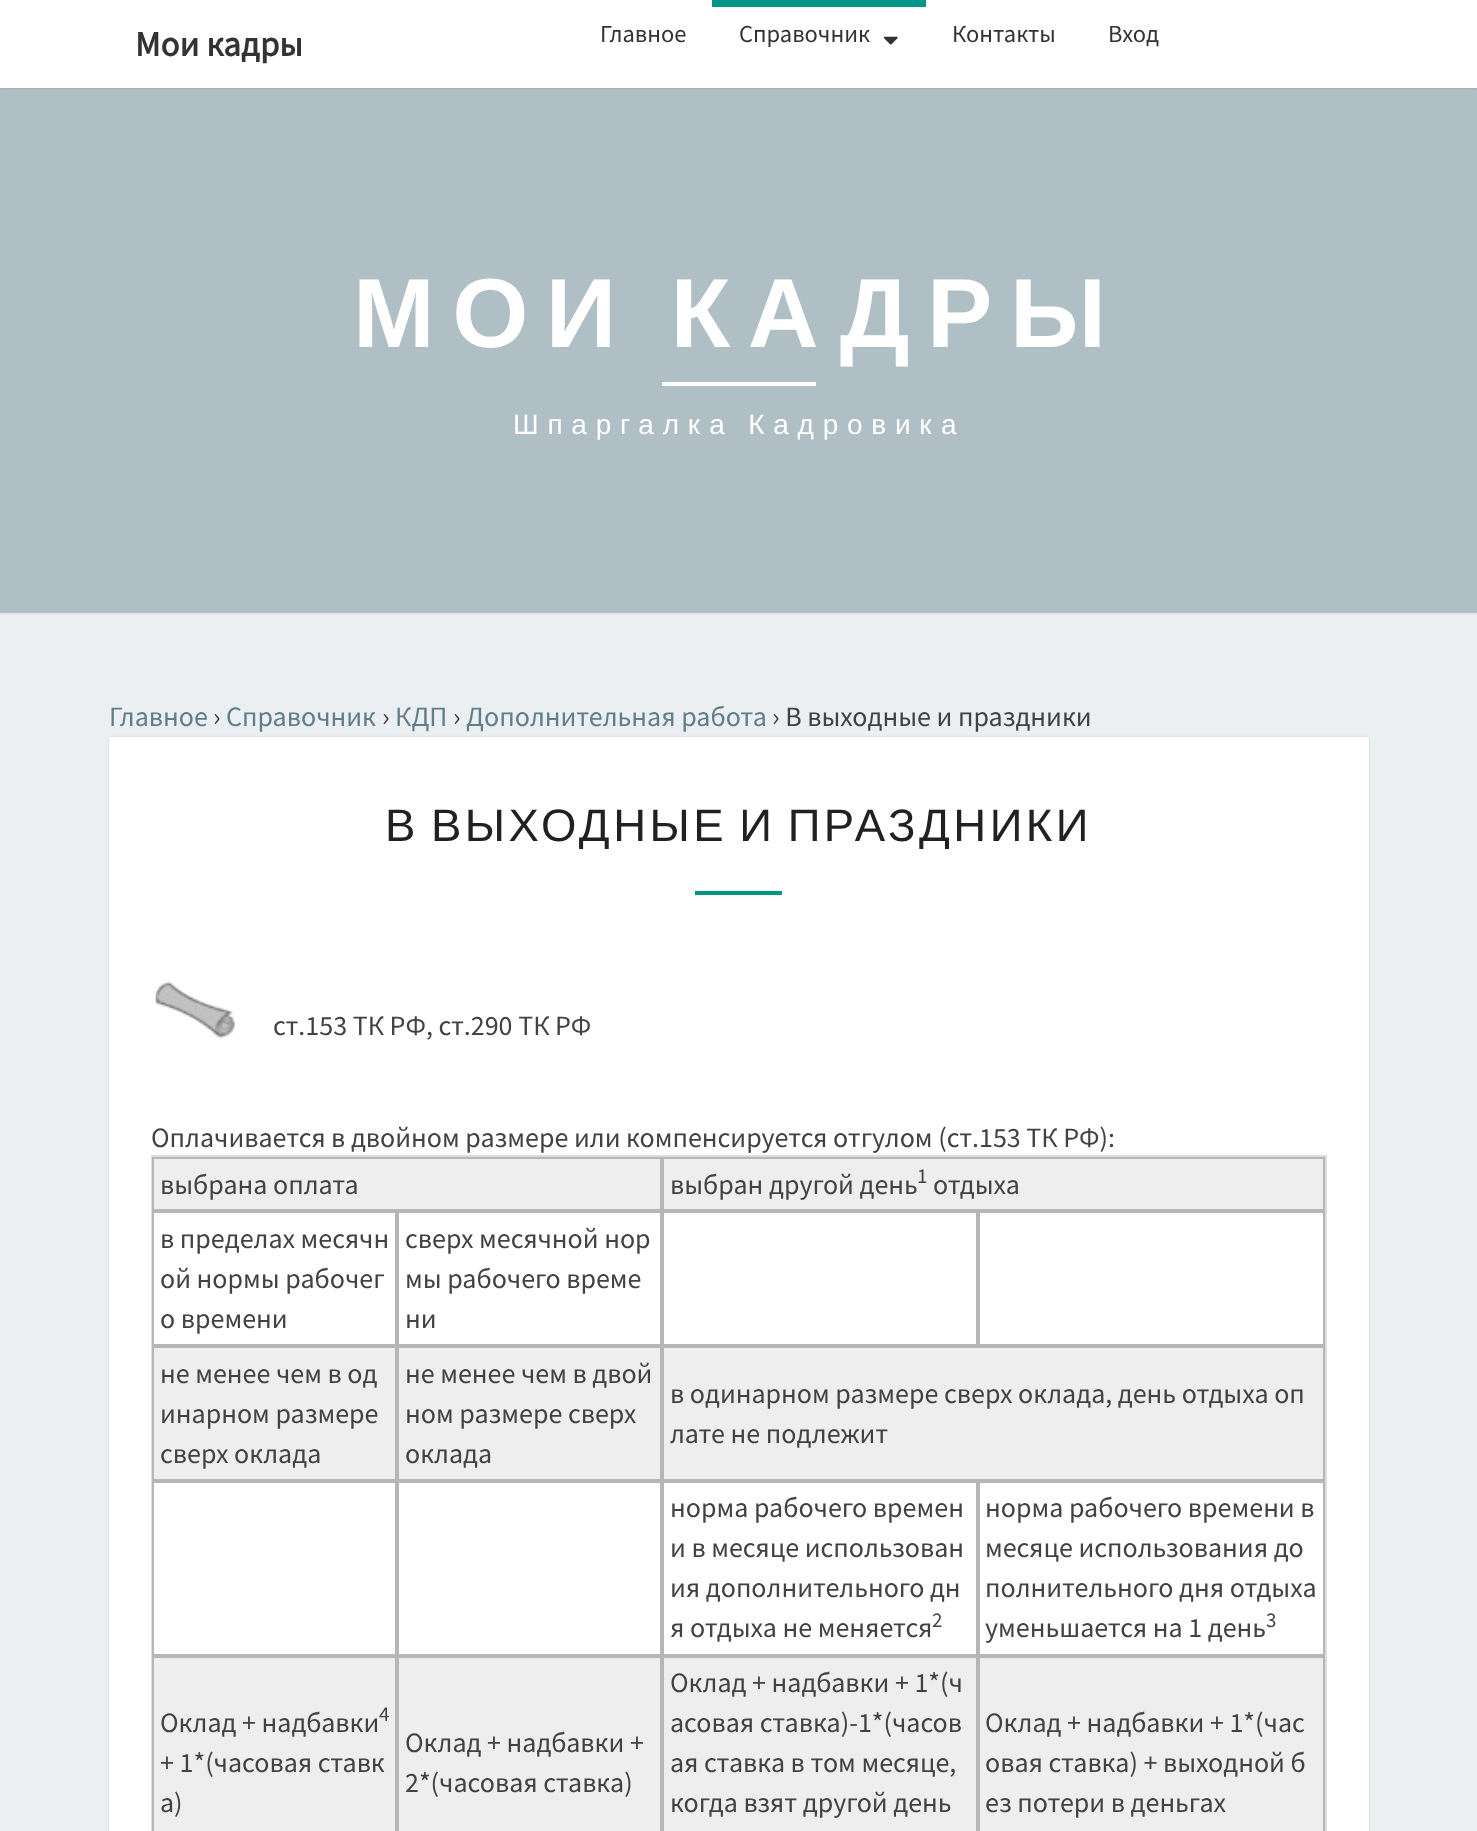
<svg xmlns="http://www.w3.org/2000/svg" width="1477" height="1831">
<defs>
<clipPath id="clip1"><rect x="151" y="800" width="1176" height="49"/></clipPath>
</defs>
<rect width="100%" height="100%" fill="#eceff1"/>
<rect x="-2" y="86" width="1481" height="528" fill="#b6b6b64d" filter="blur(1px)"/>
<rect y="88" width="1477" height="525" fill="#b0bec5"/>
<rect y="2" width="1477" height="87" fill="#64646433" filter="blur(1px)"/>
<rect width="1477" height="88" fill="#fff"/>
<text x="135" y="56" style="font-family:Source Sans Pro;font-size:35px;font-weight:bold;fill:#333">Мои кадры</text>
<text x="600" y="42" style="font-family:Source Sans Pro;font-size:24.5px;fill:#333">Главное</text>
<rect x="712" width="214" height="7" fill="#009688"/>
<text x="739" y="42" style="font-family:Source Sans Pro;font-size:24.5px;fill:#333">Справочник</text>
<image x="883" y="36" width="15" height="9" href="media/1.png"/>
<text x="952" y="42" style="font-family:Source Sans Pro;font-size:24.5px;fill:#333">Контакты</text>
<text x="1108" y="42" style="font-family:Source Sans Pro;font-size:24.5px;fill:#333">Вход</text>
<text x="353" y="347" word-spacing="-8" style="font-family:Liberation Sans;font-size:98px;font-weight:bold;letter-spacing:17.5px;fill:#fff">МОИ КАДРЫ</text>
<rect x="662" y="382" width="154" height="4" fill="#fff"/>
<text x="513" y="434" word-spacing="-2" style="font-family:Liberation Sans;font-size:28px;letter-spacing:8.75px;fill:#fff">Шпаргалка Кадровика</text>
<text x="109" y="726" style="font-family:Source Sans Pro;font-size:28px;fill:#607d8b">Главное</text>
<text x="213" y="726" style="font-family:Source Sans Pro;font-size:28px;fill:#424242">›</text>
<text x="226" y="726" style="font-family:Source Sans Pro;font-size:28px;fill:#607d8b">Справочник</text>
<text x="382" y="726" style="font-family:Source Sans Pro;font-size:28px;fill:#424242">›</text>
<text x="395" y="726" style="font-family:Source Sans Pro;font-size:28px;fill:#607d8b">КДП</text>
<text x="453" y="726" style="font-family:Source Sans Pro;font-size:28px;fill:#424242">›</text>
<text x="466" y="726" style="font-family:Source Sans Pro;font-size:28px;fill:#607d8b">Дополнительная работа</text>
<text x="772" y="726" style="font-family:Source Sans Pro;font-size:28px;fill:#424242">› В выходные и праздники</text>
<rect x="109" y="737" width="1260" height="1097" fill="#00000026" filter="blur(1px)"/>
<rect x="109" y="737" width="1260" height="1094" fill="#fff"/>
<g clip-path="url(#clip1)">
<text x="385" y="841" word-spacing="-4" style="font-family:Liberation Sans;font-size:45.5px;letter-spacing:3.5px;fill:#212121">В ВЫХОДНЫЕ И ПРАЗДНИКИ</text>
</g>
<rect x="695" y="891" width="87" height="4" fill="#009688"/>
<image x="154" y="981" width="81" height="58" href="media/2.png"/>
<text x="273" y="1035" style="font-family:Source Sans Pro;font-size:28px;fill:#424242">ст.153 ТК РФ, ст.290 ТК РФ</text>
<text x="151" y="1147" style="font-family:Source Sans Pro;font-size:28px;fill:#424242">Оплачивается в двойном размере или компенсируется отгулом (ст.153 ТК РФ):</text>
<rect x="152" y="1156" width="1174" height="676" fill="none" stroke="#ddd" stroke-width="2"/>
<rect x="154" y="1159" width="1169" height="50" fill="#eee"/>
<rect x="153" y="1158" width="508" height="52" fill="none" stroke="#b6b6b6" stroke-width="2"/>
<text x="160" y="1194" style="font-family:Source Sans Pro;font-size:28px;fill:#424242">выбрана оплата</text>
<rect x="663" y="1158" width="661" height="52" fill="none" stroke="#b6b6b6" stroke-width="2"/>
<text x="670" y="1194" style="font-family:Source Sans Pro;font-size:28px;fill:#424242">выбран другой день</text>
<text x="917" y="1183" style="font-family:Source Sans Pro;font-size:21px;fill:#424242">1</text>
<text x="933" y="1194" style="font-family:Source Sans Pro;font-size:28px;fill:#424242">отдыха</text>
<rect x="153" y="1212" width="243" height="133" fill="none" stroke="#b6b6b6" stroke-width="2"/>
<text x="160" y="1248" style="font-family:Source Sans Pro;font-size:28px;fill:#424242">в пределах месячн</text>
<text x="160" y="1288" style="font-family:Source Sans Pro;font-size:28px;fill:#424242">ой нормы рабочег</text>
<text x="160" y="1328" style="font-family:Source Sans Pro;font-size:28px;fill:#424242">о времени</text>
<rect x="398" y="1212" width="263" height="133" fill="none" stroke="#b6b6b6" stroke-width="2"/>
<text x="405" y="1248" style="font-family:Source Sans Pro;font-size:28px;fill:#424242">сверх месячной нор</text>
<text x="405" y="1288" style="font-family:Source Sans Pro;font-size:28px;fill:#424242">мы рабочего време</text>
<text x="405" y="1328" style="font-family:Source Sans Pro;font-size:28px;fill:#424242">ни</text>
<rect x="663" y="1212" width="314" height="133" fill="none" stroke="#b6b6b6" stroke-width="2"/>
<rect x="979" y="1212" width="345" height="133" fill="none" stroke="#b6b6b6" stroke-width="2"/>
<rect x="154" y="1348" width="1169" height="131" fill="#eee"/>
<rect x="153" y="1347" width="243" height="133" fill="none" stroke="#b6b6b6" stroke-width="2"/>
<text x="160" y="1383" style="font-family:Source Sans Pro;font-size:28px;fill:#424242">не менее чем в од</text>
<text x="160" y="1423" style="font-family:Source Sans Pro;font-size:28px;fill:#424242">инарном размере</text>
<text x="160" y="1463" style="font-family:Source Sans Pro;font-size:28px;fill:#424242">сверх оклада</text>
<rect x="398" y="1347" width="263" height="133" fill="none" stroke="#b6b6b6" stroke-width="2"/>
<text x="405" y="1383" style="font-family:Source Sans Pro;font-size:28px;fill:#424242">не менее чем в двой</text>
<text x="405" y="1423" style="font-family:Source Sans Pro;font-size:28px;fill:#424242">ном размере сверх</text>
<text x="405" y="1463" style="font-family:Source Sans Pro;font-size:28px;fill:#424242">оклада</text>
<rect x="663" y="1347" width="661" height="133" fill="none" stroke="#b6b6b6" stroke-width="2"/>
<text x="670" y="1403" style="font-family:Source Sans Pro;font-size:28px;fill:#424242">в одинарном размере сверх оклада, день отдыха оп</text>
<text x="670" y="1443" style="font-family:Source Sans Pro;font-size:28px;fill:#424242">лате не подлежит</text>
<rect x="153" y="1482" width="243" height="173" fill="none" stroke="#b6b6b6" stroke-width="2"/>
<rect x="398" y="1482" width="263" height="173" fill="none" stroke="#b6b6b6" stroke-width="2"/>
<rect x="663" y="1482" width="314" height="173" fill="none" stroke="#b6b6b6" stroke-width="2"/>
<text x="670" y="1517" style="font-family:Source Sans Pro;font-size:28px;fill:#424242">норма рабочего времен</text>
<text x="670" y="1557" style="font-family:Source Sans Pro;font-size:28px;fill:#424242">и в месяце использован</text>
<text x="670" y="1597" style="font-family:Source Sans Pro;font-size:28px;fill:#424242">ия дополнительного дн</text>
<text x="932" y="1627" style="font-family:Source Sans Pro;font-size:21px;fill:#424242">2</text>
<text x="670" y="1637" style="font-family:Source Sans Pro;font-size:28px;fill:#424242">я отдыха не меняется</text>
<rect x="979" y="1482" width="345" height="173" fill="none" stroke="#b6b6b6" stroke-width="2"/>
<text x="985" y="1517" style="font-family:Source Sans Pro;font-size:28px;fill:#424242">норма рабочего времени в</text>
<text x="985" y="1557" style="font-family:Source Sans Pro;font-size:28px;fill:#424242">месяце использования до</text>
<text x="985" y="1597" style="font-family:Source Sans Pro;font-size:28px;fill:#424242">полнительного дня отдыха</text>
<text x="985" y="1637" style="font-family:Source Sans Pro;font-size:28px;fill:#424242">уменьшается на 1 день</text>
<text x="1266" y="1627" style="font-family:Source Sans Pro;font-size:21px;fill:#424242">3</text>
<rect x="154" y="1658" width="1169" height="173" fill="#eee"/>
<rect x="153" y="1657" width="243" height="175" fill="none" stroke="#b6b6b6" stroke-width="2"/>
<text x="160" y="1732" style="font-family:Source Sans Pro;font-size:28px;fill:#424242">Оклад + надбавки</text>
<text x="379" y="1721" style="font-family:Source Sans Pro;font-size:21px;fill:#424242">4</text>
<text x="160" y="1772" style="font-family:Source Sans Pro;font-size:28px;fill:#424242">+ 1*(часовая ставк</text>
<text x="160" y="1812" style="font-family:Source Sans Pro;font-size:28px;fill:#424242">а)</text>
<rect x="398" y="1657" width="263" height="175" fill="none" stroke="#b6b6b6" stroke-width="2"/>
<text x="405" y="1752" style="font-family:Source Sans Pro;font-size:28px;fill:#424242">Оклад + надбавки +</text>
<text x="405" y="1792" style="font-family:Source Sans Pro;font-size:28px;fill:#424242">2*(часовая ставка)</text>
<rect x="663" y="1657" width="314" height="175" fill="none" stroke="#b6b6b6" stroke-width="2"/>
<text x="670" y="1692" style="font-family:Source Sans Pro;font-size:28px;fill:#424242">Оклад + надбавки + 1*(ч</text>
<text x="670" y="1732" style="font-family:Source Sans Pro;font-size:28px;fill:#424242">асовая ставка)-1*(часов</text>
<text x="670" y="1772" style="font-family:Source Sans Pro;font-size:28px;fill:#424242">ая ставка в том месяце,</text>
<text x="670" y="1812" style="font-family:Source Sans Pro;font-size:28px;fill:#424242">когда взят другой день</text>
<rect x="979" y="1657" width="345" height="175" fill="none" stroke="#b6b6b6" stroke-width="2"/>
<text x="985" y="1732" style="font-family:Source Sans Pro;font-size:28px;fill:#424242">Оклад + надбавки + 1*(час</text>
<text x="985" y="1772" style="font-family:Source Sans Pro;font-size:28px;fill:#424242">овая ставка) + выходной б</text>
<text x="985" y="1812" style="font-family:Source Sans Pro;font-size:28px;fill:#424242">ез потери в деньгах</text>
</svg>
